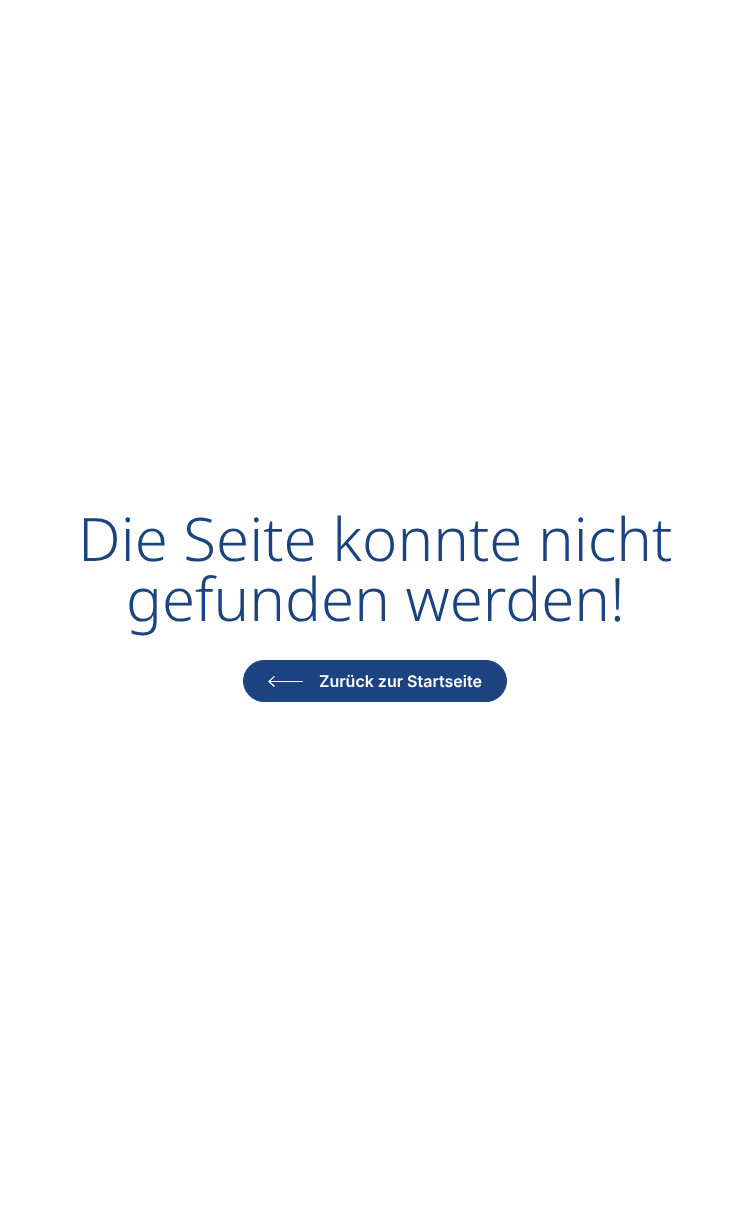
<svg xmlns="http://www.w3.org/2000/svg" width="750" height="1210">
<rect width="100%" height="100%" fill="#fff"/>
<text x="78" y="561" style="font-family:Noto Sans;font-size:60px;font-weight:300;fill:#1a4380">Die Seite konnte nicht</text>
<text x="126" y="621" style="font-family:Noto Sans;font-size:60px;font-weight:300;fill:#1a4380">gefunden werden!</text>
<rect x="243.5" y="660.5" width="263" height="41" rx="20.5" fill="#1a4380" stroke="#1a4380"/>
<path d="M275 676.5l-4.5 4.5h32.5v1h-32.5l4.5 4l-1 1l-6-5.5l6-5.5z" fill="#fff"/>
<text x="319" y="687" style="font-family:Inter;font-size:16px;font-weight:600;fill:#fff">Zurück zur Startseite</text>
</svg>
